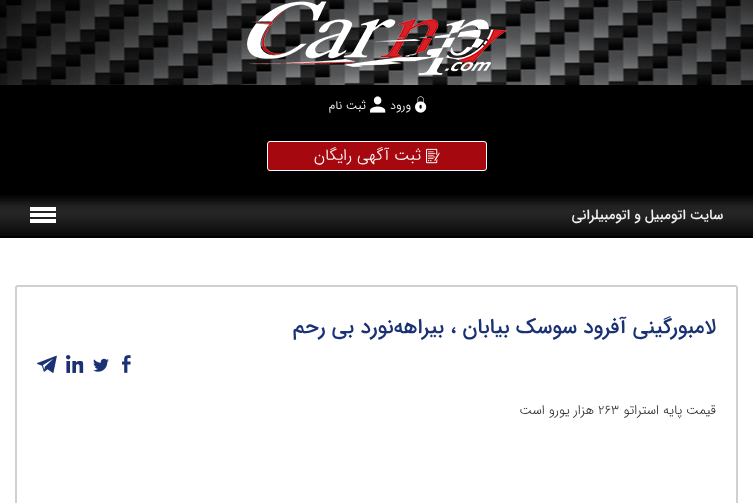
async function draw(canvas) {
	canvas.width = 753;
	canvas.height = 503;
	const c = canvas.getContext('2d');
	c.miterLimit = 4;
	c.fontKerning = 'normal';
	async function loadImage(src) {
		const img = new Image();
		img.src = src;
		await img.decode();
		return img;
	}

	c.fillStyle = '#fff';
	c.fillRect(0, 0, 753, 503);
	c.fillStyle = '#000';
	c.fillRect(0, 85, 753, 153);
	c.drawImage(await loadImage('img1.png'), 0, 0, 753, 85);
	c.drawImage(await loadImage('img2.png'), 247, 1, 260, 74);
	c.drawImage(await loadImage('img3.png'), 415, 96, 12, 17);
	c.direction = 'rtl';
	c.font = '300 12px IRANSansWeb';
	c.fillStyle = '#fff';
	c.fillText('ورود', 411, 109);
	c.drawImage(await loadImage('img4.png'), 370, 96, 16, 17);
	c.fillText('ثبت نام', 366, 109);
	c.fillStyle = '#a5080e';
	c.beginPath();
	c.roundRect(267.5, 141.5, 219, 29, 2.5);
	c.fill();
	c.strokeStyle = '#fff';
	c.stroke();
	c.drawImage(await loadImage('img5.png'), 426, 148, 14, 16);
	c.font = '300 16px IRANSansWeb';
	c.fillStyle = '#fff';
	c.fillText('ثبت آگهی رایگان', 421, 160);
	c.drawImage(await loadImage('img6.png'), 0, 195, 753, 41);
	c.font = '500 14px IRANSansWeb';
	c.fillStyle = '#f2f2f2';
	c.fillText('سایت اتومبیل و اتومبیلرانی', 723, 219);
	for (const [x, y, w, h, color] of [
		[30, 207, 26, 4, '#fff'],
		[30, 213, 26, 4, '#fff'],
		[30, 219, 26, 4, '#fff'],
	]) {
		c.fillStyle = color;
		c.fillRect(x, y, w, h);
	}
	c.beginPath();
	c.roundRect(16, 286, 721, 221, 2);
	c.strokeStyle = '#d0d0d0';
	c.lineWidth = 2;
	c.stroke();
	c.font = '500 21px IRANSansWeb';
	c.fillStyle = '#1a3173';
	c.fillText('لامبورگینی آفرود سوسک بیابان ، بیراهه‌نورد بی رحم', 716, 333);
	c.drawImage(await loadImage('img7.png'), 122, 355, 9, 18);
	c.drawImage(await loadImage('img8.png'), 93, 358, 16, 14);
	c.drawImage(await loadImage('img9.png'), 66, 355, 18, 18);
	c.drawImage(await loadImage('img10.png'), 37, 355, 20, 18);
	c.font = '300 13px IRANSansWeb';
	c.fillStyle = '#333';
	c.fillText('قیمت پایه استراتو', 716, 414);
	c.direction = 'ltr';
	c.fillText('۲۶۳', 598, 414);
	c.direction = 'rtl';
	c.fillText('هزار یورو است', 594, 414);
}

draw(document.querySelector('canvas'));
